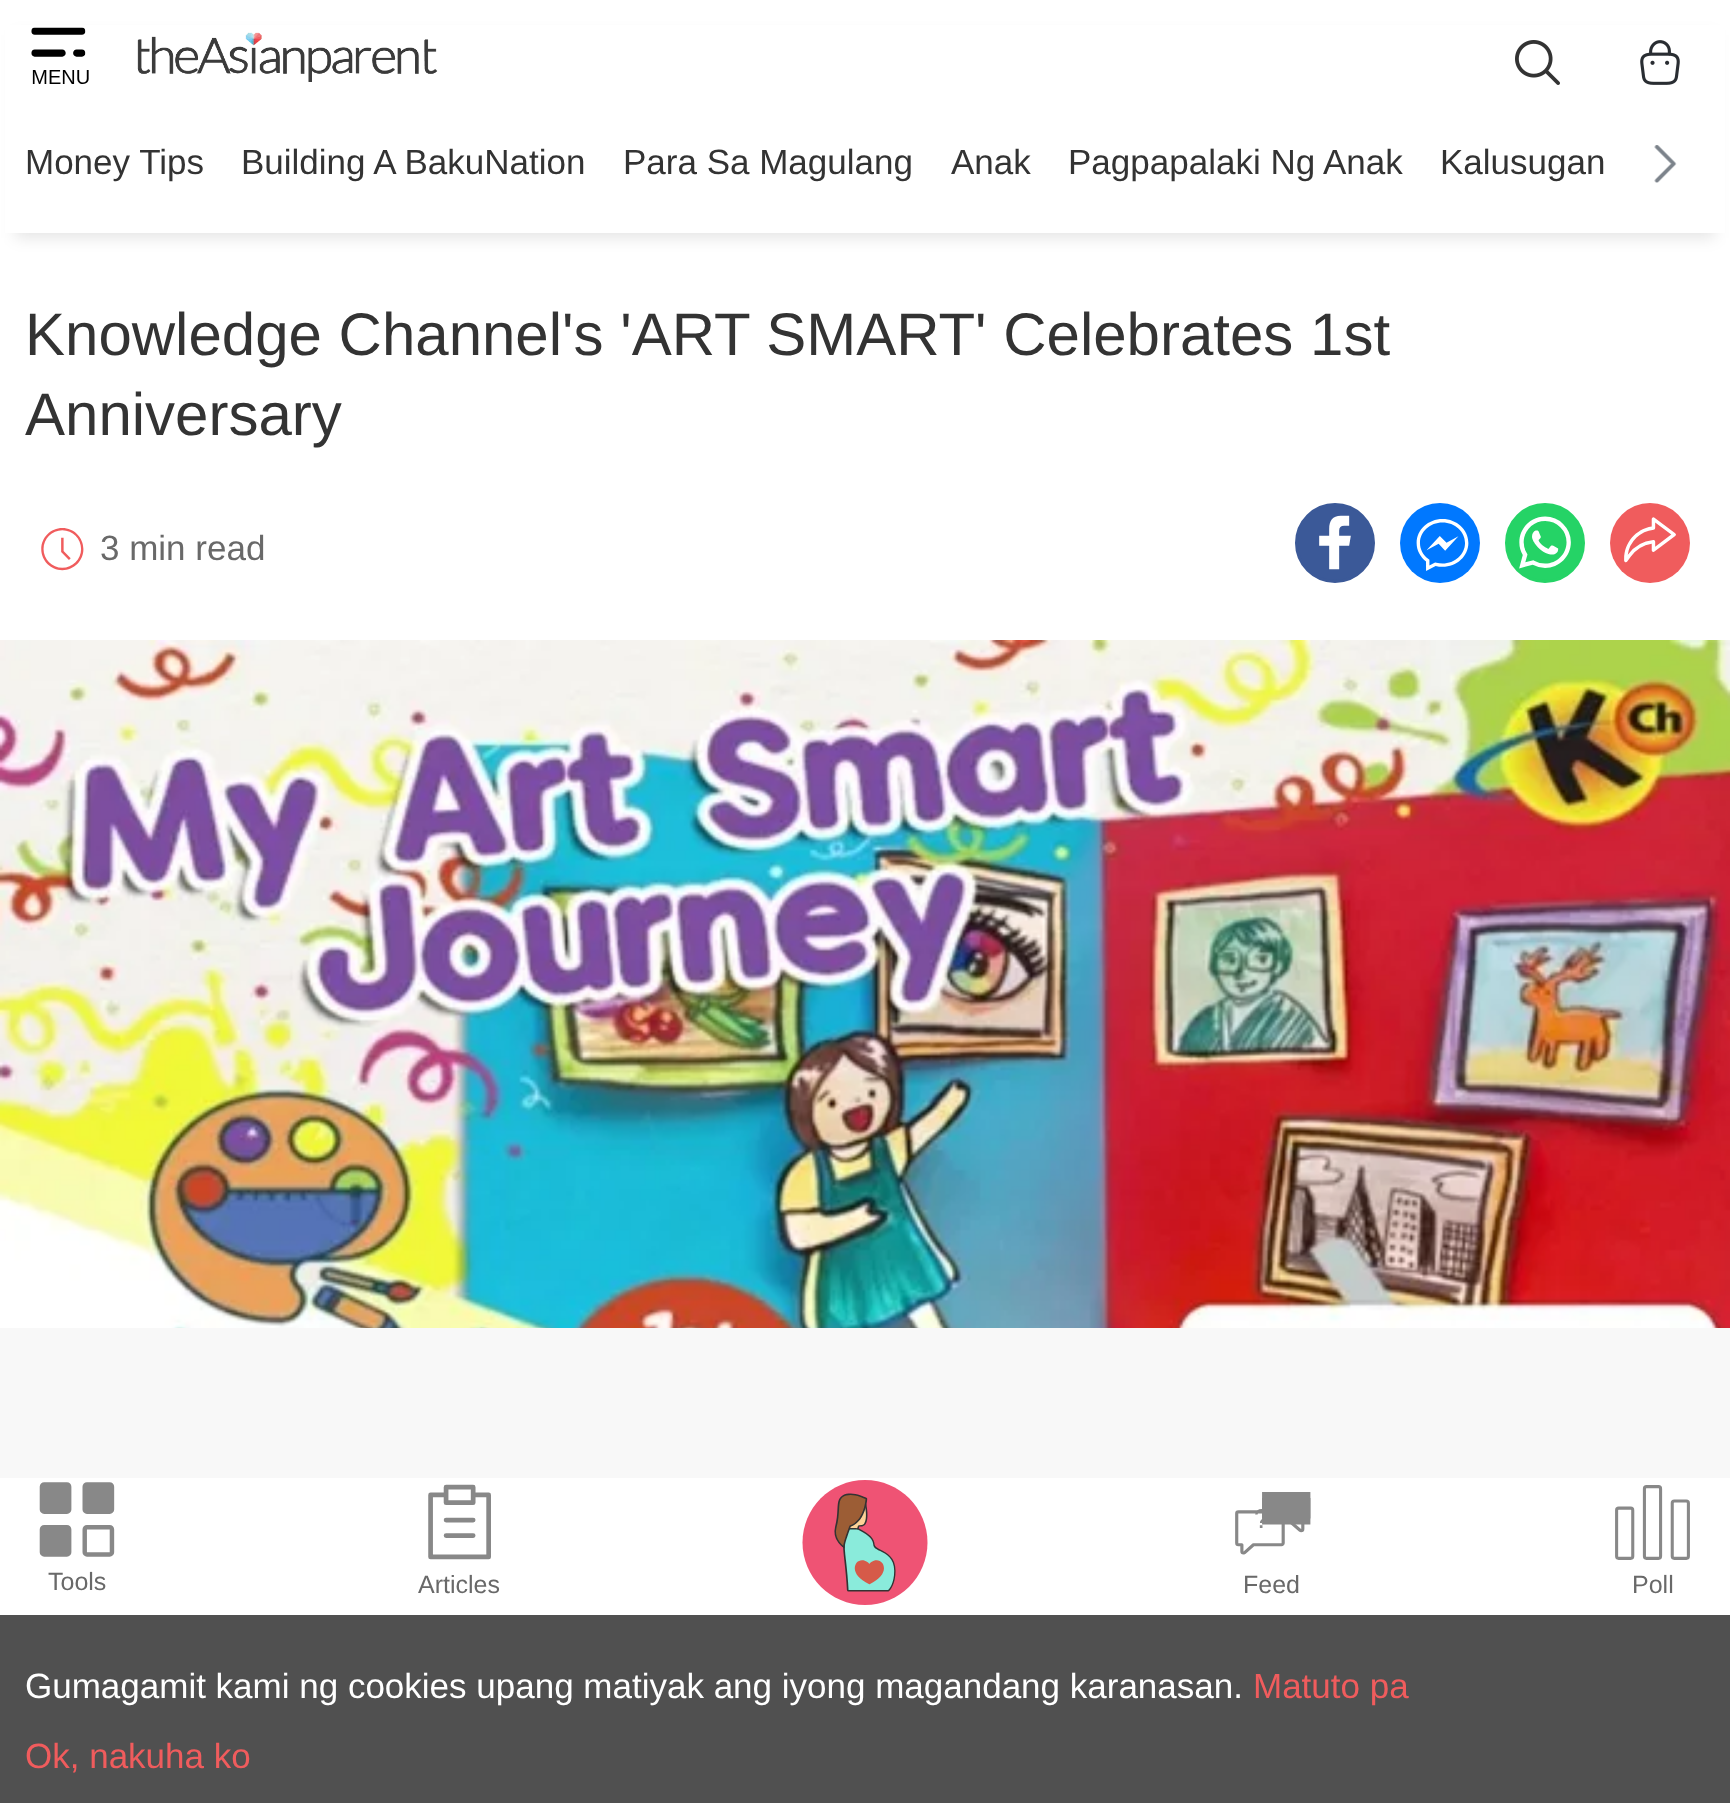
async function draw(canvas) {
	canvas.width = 1730;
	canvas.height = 1803;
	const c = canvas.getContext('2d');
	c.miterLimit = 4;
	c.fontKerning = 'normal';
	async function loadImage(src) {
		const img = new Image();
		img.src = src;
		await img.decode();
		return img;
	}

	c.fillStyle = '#fff';
	c.fillRect(0, 0, 1730, 1803);
	c.fillStyle = '#0000001a';
	c.filter = 'blur(7.5px)';
	c.beginPath();
	c.rect(15, 35, 1700, 203);
	c.fill();
	c.filter = 'none';
	c.fillStyle = '#fff';
	c.fillRect(5, 25, 1720, 208);
	c.drawImage(await loadImage('img1.png'), 31, 27, 58, 57);
	c.drawImage(await loadImage('img2.png'), 137, 32, 301, 50);
	c.drawImage(await loadImage('img3.png'), 1515, 40, 45, 45);
	c.drawImage(await loadImage('img4.png'), 1640, 40, 40, 45);
	c.font = '35px Liberation Sans';
	c.fillStyle = '#333';
	for (const [text, x, y] of [
		['Money Tips', 25, 174],
		['Building A BakuNation', 241, 174],
		['Para Sa Magulang', 623, 174],
		['Anak', 951, 174],
		['Pagpapalaki Ng Anak', 1068, 174],
		['Kalusugan', 1440, 174],
	]) {
		c.fillText(text, x, y);
	}
	c.drawImage(await loadImage('img5.png'), 1654, 145, 23, 38);
	c.font = '60px Liberation Sans';
	c.fillText('Knowledge Channel\'s \'ART SMART\' Celebrates 1st', 25, 355);
	c.fillText('Anniversary', 25, 435);
	c.drawImage(await loadImage('img6.png'), 41, 528, 43, 43);
	c.font = '35px Liberation Sans';
	c.fillStyle = '#696969';
	c.fillText('3 min read', 100, 560);
	c.fillStyle = '#3b5998';
	c.beginPath();
	c.arc(1335, 543, 38.5, 0, 2 * Math.PI);
	c.fill();
	c.strokeStyle = '#3b5998';
	c.lineWidth = 3;
	c.stroke();
	c.drawImage(await loadImage('img7.png'), 1319, 515, 32, 55);
	c.fillStyle = '#0078ff';
	c.beginPath();
	c.arc(1440, 543, 40, 0, 2 * Math.PI);
	c.fill();
	c.drawImage(await loadImage('img8.png'), 1416, 519, 53, 52);
	c.fillStyle = '#25d366';
	c.beginPath();
	c.arc(1545, 543, 38.5, 0, 2 * Math.PI);
	c.fill();
	c.strokeStyle = '#25d366';
	c.stroke();
	c.drawImage(await loadImage('img9.png'), 1519, 516, 52, 53);
	c.fillStyle = '#f05c5d';
	c.beginPath();
	c.arc(1650, 543, 40, 0, 2 * Math.PI);
	c.fill();
	c.drawImage(await loadImage('img10.png'), 1624, 517, 52, 46);
	c.drawImage(await loadImage('img11.png'), 0, 640, 1730, 688);
	c.fillStyle = '#f8f8f8';
	c.fillRect(0, 1328, 1730, 150);
	c.drawImage(await loadImage('img12.png'), 39, 1482, 76, 75);
	c.font = '25px Liberation Sans';
	c.fillStyle = '#696969';
	c.fillText('Tools', 48, 1590);
	c.drawImage(await loadImage('img13.png'), 428, 1484, 63, 76);
	c.fillText('Articles', 418, 1593);
	c.drawImage(await loadImage('img14.png'), 802, 1480, 126, 125);
	c.drawImage(await loadImage('img15.png'), 1235, 1492, 76, 63);
	c.fillText('Feed', 1243, 1593);
	c.drawImage(await loadImage('img16.png'), 1615, 1485, 75, 75);
	c.fillText('Poll', 1632, 1593);
	c.fillStyle = '#505050';
	c.fillRect(0, 1615, 1730, 188);
	c.font = '35px Liberation Sans';
	c.fillStyle = '#fff';
	c.fillText('Gumagamit kami ng cookies upang matiyak ang iyong magandang karanasan.', 25, 1698);
	c.fillStyle = '#f05c5d';
	c.fillText('Matuto pa', 1253, 1698);
	c.fillText('Ok, nakuha ko', 25, 1768);
}

draw(document.querySelector('canvas'));
